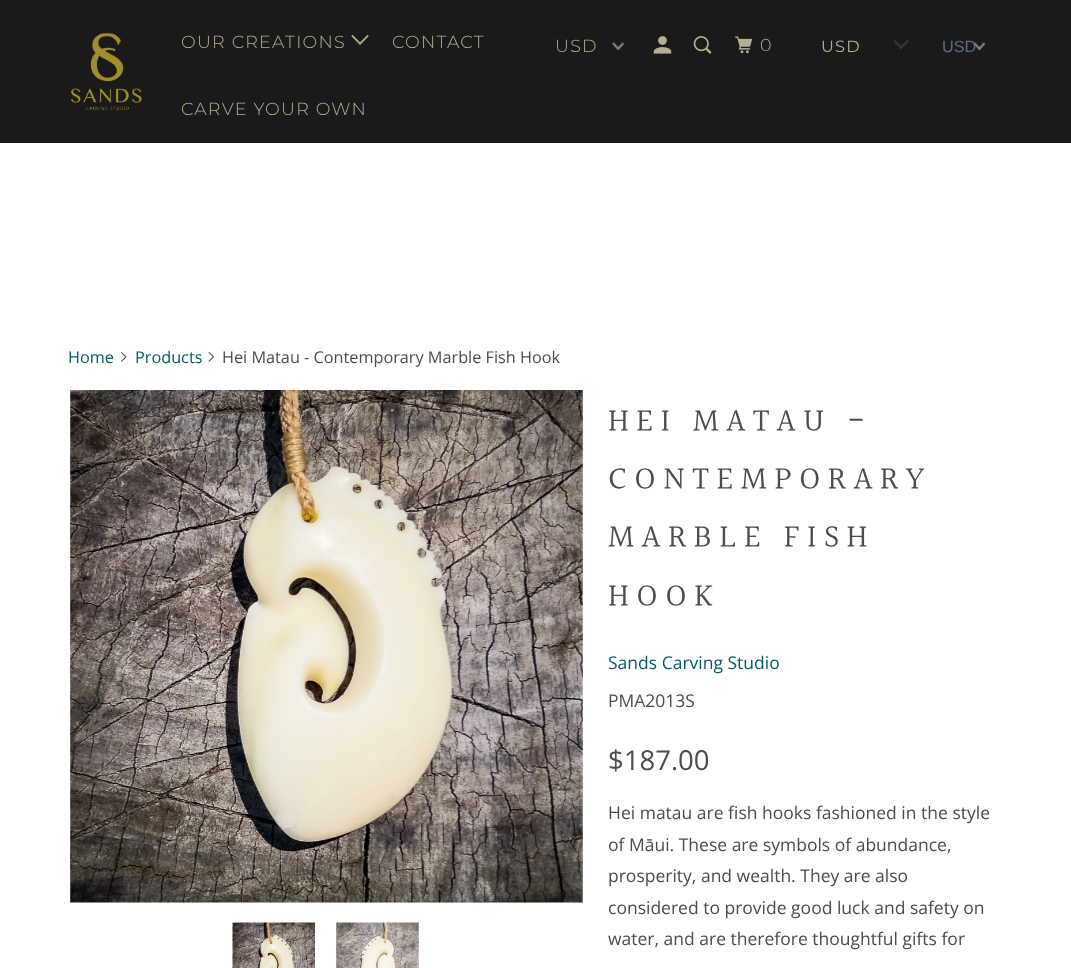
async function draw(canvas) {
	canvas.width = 1071;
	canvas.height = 968;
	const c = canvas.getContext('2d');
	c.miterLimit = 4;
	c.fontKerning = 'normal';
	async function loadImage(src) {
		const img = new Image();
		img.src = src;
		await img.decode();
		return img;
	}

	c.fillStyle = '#fff';
	c.fillRect(0, 0, 1071, 968);
	c.fillStyle = '#1a1a1a';
	c.fillRect(0, 0, 1071, 143);
	c.drawImage(await loadImage('img1.png'), 70, 32, 72, 79);
	c.letterSpacing = '1.25px';
	c.font = '300 17.5px Montserrat';
	c.fillStyle = '#b3af94';
	c.fillText('OUR CREATIONS', 181, 48);
	c.drawImage(await loadImage('img2.png'), 351, 34, 18, 11);
	c.fillText('CONTACT', 392, 48);
	c.fillText('CARVE YOUR OWN', 181, 115);
	c.drawImage(await loadImage('img3.png'), 612, 42, 12, 9);
	c.fillText('USD', 555, 52);
	c.drawImage(await loadImage('img4.png'), 653, 36, 19, 18);
	c.drawImage(await loadImage('img5.png'), 693, 36, 19, 18);
	c.drawImage(await loadImage('img6.png'), 735, 36, 18, 18);
	c.fillText('0', 760, 51);
	c.font = '16.25px Montserrat';
	c.fillText('USD', 821, 52);
	c.fillStyle = '#333';
	c.beginPath();
	c.moveTo(907.5, 39.5);
	c.lineTo(909, 41.5);
	c.lineTo(901, 49.5);
	c.lineTo(899.5, 47.5);
	c.closePath();
	c.fill();
	c.beginPath();
	c.moveTo(895, 39.5);
	c.lineTo(903, 47.5);
	c.lineTo(901, 49.5);
	c.lineTo(893.5, 41.5);
	c.closePath();
	c.fill();
	c.drawImage(await loadImage('img7.png'), 973, 42, 13, 9);
	c.letterSpacing = '0px';
	c.font = '16.25px Liberation Sans';
	c.fillStyle = '#5f6a7d';
	c.fillText('USD', 942, 52);
	c.font = '16.25px Open Sans';
	c.fillStyle = '#005e62';
	c.fillText('Home', 68, 363);
	c.drawImage(await loadImage('img8.png'), 121, 352, 6, 10);
	c.fillText('Products', 135, 363);
	c.drawImage(await loadImage('img9.png'), 208, 352, 7, 10);
	c.fillStyle = '#494c50';
	c.fillText('Hei Matau - Contemporary Marble Fish Hook', 222, 363);
	c.drawImage(await loadImage('img10.png'), 70, 390, 513, 513);
	c.drawImage(await loadImage('img11.png'), 232, 922, 83, 46);
	c.drawImage(await loadImage('img12.png'), 336, 922, 83, 46);
	c.letterSpacing = '7.5px';
	c.font = '32.5px Halant';
	for (const [text, x, y] of [
		['HEI MATAU -', 608, 432],
		['CONTEMPORARY', 608, 490],
		['MARBLE FISH', 608, 548],
		['HOOK', 608, 607],
	]) {
		c.fillText(text, x, y);
	}
	c.letterSpacing = '0px';
	c.font = '17.5px Open Sans';
	c.fillStyle = '#005e62';
	c.fillText('Sands Carving Studio', 608, 669);
	c.fillStyle = '#494c50';
	c.fillText('PMA2013S', 608, 707);
	c.font = '27.5px Open Sans';
	c.fillText('$187.00', 608, 770);
	c.font = '17.5px Open Sans';
	for (const [text, x, y] of [
		['Hei matau are fish hooks fashioned in the style', 608, 819],
		['of Māui. These are symbols of abundance,', 608, 851],
		['prosperity, and wealth. They are also', 608, 882],
		['considered to provide good luck and safety on', 608, 914],
		['water, and are therefore thoughtful gifts for', 608, 945],
	]) {
		c.fillText(text, x, y);
	}
}

draw(document.querySelector('canvas'));
